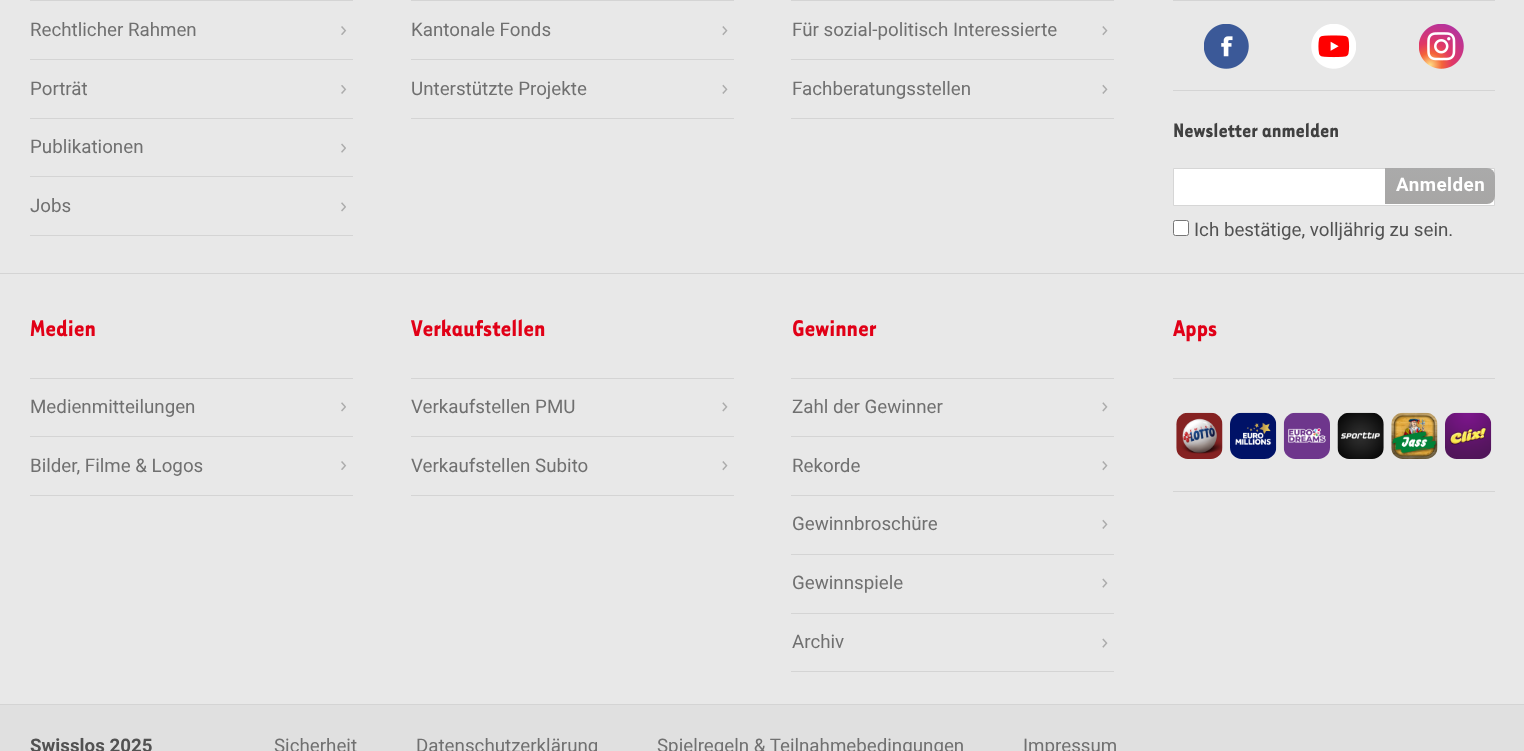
async function draw(canvas) {
	canvas.width = 1524;
	canvas.height = 751;
	const c = canvas.getContext('2d');
	c.miterLimit = 4;
	c.fontKerning = 'normal';
	async function loadImage(src) {
		const img = new Image();
		img.src = src;
		await img.decode();
		return img;
	}
	let gradient;

	c.fillStyle = '#e8e8e8';
	c.fillRect(0, 0, 1524, 751);
	for (const [x, y, w, h, color] of [
		[0, 273, 1524, 1, '#d4d4d4'],
		[30, 0, 323, 1, '#d4d4d4'],
		[30, 59, 323, 1, '#d4d4d4'],
	]) {
		c.fillStyle = color;
		c.fillRect(x, y, w, h);
	}
	c.drawImage(await loadImage('img1.png'), 341, 26, 6, 9);
	c.font = '18.75px Roboto';
	c.fillStyle = '#707070';
	c.fillText('Rechtlicher Rahmen', 30, 36);
	c.fillStyle = '#d4d4d4';
	c.fillRect(30, 118, 323, 1);
	c.drawImage(await loadImage('img2.png'), 341, 85, 6, 9);
	c.fillStyle = '#707070';
	c.fillText('Porträt', 30, 95);
	c.fillStyle = '#d4d4d4';
	c.fillRect(30, 176, 323, 1);
	c.drawImage(await loadImage('img3.png'), 341, 143, 5, 10);
	c.fillStyle = '#707070';
	c.fillText('Publikationen', 30, 153);
	c.fillStyle = '#d4d4d4';
	c.fillRect(30, 235, 323, 1);
	c.drawImage(await loadImage('img4.png'), 341, 202, 5, 10);
	c.fillStyle = '#707070';
	c.fillText('Jobs', 30, 212);
	c.fillStyle = '#d4d4d4';
	c.fillRect(411, 0, 323, 1);
	c.fillRect(411, 59, 323, 1);
	c.drawImage(await loadImage('img5.png'), 722, 26, 6, 10);
	c.fillStyle = '#707070';
	c.fillText('Kantonale Fonds', 411, 36);
	c.fillStyle = '#d4d4d4';
	c.fillRect(411, 118, 323, 1);
	c.drawImage(await loadImage('img6.png'), 722, 84, 6, 10);
	c.fillStyle = '#707070';
	c.fillText('Unterstützte Projekte', 411, 95);
	c.fillStyle = '#d4d4d4';
	c.fillRect(791, 0, 323, 1);
	c.fillRect(791, 59, 323, 1);
	c.drawImage(await loadImage('img5.png'), 1102, 26, 6, 10);
	c.fillStyle = '#707070';
	c.fillText('Für sozial-politisch Interessierte', 792, 36);
	c.fillStyle = '#d4d4d4';
	c.fillRect(791, 118, 323, 1);
	c.drawImage(await loadImage('img6.png'), 1102, 84, 6, 10);
	c.fillStyle = '#707070';
	c.fillText('Fachberatungsstellen', 792, 95);
	c.fillStyle = '#d4d4d4';
	c.fillRect(1173, 0, 322, 1);
	c.fillRect(1173, 90, 322, 1);
	c.drawImage(await loadImage('img7.png'), 1204, 24, 45, 45);
	c.drawImage(await loadImage('img8.png'), 1311, 24, 45, 45);
	c.drawImage(await loadImage('img9.png'), 1419, 24, 45, 45);
	c.font = 'bold 22.5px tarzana';
	c.fillStyle = '#404040';
	c.fillText('Newsletter anmelden', 1173, 137);
	c.fillStyle = '#fff';
	c.beginPath();
	c.rect(1173.5, 168.5, 321, 37);
	c.fill();
	c.strokeStyle = '#d6d6d6';
	c.stroke();
	gradient = c.createLinearGradient(1440, 168, 1440, 204);
	gradient.addColorStop(0, '#aaa');
	gradient.addColorStop(1, '#a7a6a5');
	c.fillStyle = gradient;
	c.beginPath();
	c.roundRect(1385, 168, 110, 36, [0, 8, 8, 0]);
	c.fill();
	c.letterSpacing = '0.5px';
	c.font = 'bold 18.75px Roboto';
	c.fillStyle = '#fff';
	c.fillText('Anmelden', 1396, 191);
	c.beginPath();
	c.roundRect(1173.5, 220.5, 15, 15, 2);
	c.fill();
	c.strokeStyle = '#767676';
	c.stroke();
	c.letterSpacing = '0px';
	c.font = '18.75px Roboto';
	c.fillStyle = '#525252';
	c.fillText('Ich bestätige, volljährig zu sein.', 1194, 236);
	c.fillStyle = '#d4d4d4';
	c.fillRect(0, 704, 1524, 1);
	c.fillRect(30, 378, 323, 1);
	c.font = 'bold 26.25px tarzana';
	c.fillStyle = '#e10017';
	c.fillText('Medien', 30, 336);
	c.fillStyle = '#d4d4d4';
	c.fillRect(30, 436, 323, 1);
	c.drawImage(await loadImage('img10.png'), 341, 402, 5, 10);
	c.font = '18.75px Roboto';
	c.fillStyle = '#707070';
	c.fillText('Medienmitteilungen', 30, 413);
	c.fillStyle = '#d4d4d4';
	c.fillRect(30, 495, 323, 1);
	c.drawImage(await loadImage('img11.png'), 341, 461, 6, 9);
	c.fillStyle = '#707070';
	c.fillText('Bilder, Filme & Logos', 30, 472);
	c.fillStyle = '#d4d4d4';
	c.fillRect(411, 378, 323, 1);
	c.font = 'bold 26.25px tarzana';
	c.fillStyle = '#e10017';
	c.fillText('Verkaufstellen', 411, 336);
	c.fillStyle = '#d4d4d4';
	c.fillRect(411, 436, 323, 1);
	c.drawImage(await loadImage('img12.png'), 722, 402, 6, 10);
	c.font = '18.75px Roboto';
	c.fillStyle = '#707070';
	c.fillText('Verkaufstellen PMU', 411, 413);
	c.fillStyle = '#d4d4d4';
	c.fillRect(411, 495, 323, 1);
	c.drawImage(await loadImage('img13.png'), 722, 461, 6, 10);
	c.fillStyle = '#707070';
	c.fillText('Verkaufstellen Subito', 411, 472);
	c.fillStyle = '#d4d4d4';
	c.fillRect(791, 378, 323, 1);
	c.font = 'bold 26.25px tarzana';
	c.fillStyle = '#e10017';
	c.fillText('Gewinner', 792, 336);
	c.fillStyle = '#d4d4d4';
	c.fillRect(791, 436, 323, 1);
	c.drawImage(await loadImage('img12.png'), 1102, 402, 6, 10);
	c.font = '18.75px Roboto';
	c.fillStyle = '#707070';
	c.fillText('Zahl der Gewinner', 792, 413);
	c.fillStyle = '#d4d4d4';
	c.fillRect(791, 495, 323, 1);
	c.drawImage(await loadImage('img13.png'), 1102, 461, 6, 10);
	c.fillStyle = '#707070';
	c.fillText('Rekorde', 792, 472);
	c.fillStyle = '#d4d4d4';
	c.fillRect(791, 554, 323, 1);
	c.drawImage(await loadImage('img14.png'), 1102, 519, 6, 10);
	c.fillStyle = '#707070';
	c.fillText('Gewinnbroschüre', 792, 530);
	c.fillStyle = '#d4d4d4';
	c.fillRect(791, 613, 323, 1);
	c.drawImage(await loadImage('img15.png'), 1102, 578, 6, 10);
	c.fillStyle = '#707070';
	c.fillText('Gewinnspiele', 792, 589);
	c.fillStyle = '#d4d4d4';
	c.fillRect(791, 671, 323, 1);
	c.drawImage(await loadImage('img15.png'), 1102, 638, 6, 10);
	c.fillStyle = '#707070';
	c.fillText('Archiv', 792, 648);
	c.fillStyle = '#d4d4d4';
	c.fillRect(1173, 378, 322, 1);
	c.font = 'bold 26.25px tarzana';
	c.fillStyle = '#e10017';
	c.fillText('Apps', 1173, 336);
	c.fillStyle = '#d4d4d4';
	c.fillRect(1173, 491, 322, 1);
	c.drawImage(await loadImage('img16.png'), 1176, 412, 47, 47);
	c.drawImage(await loadImage('img17.png'), 1230, 412, 47, 47);
	c.drawImage(await loadImage('img18.png'), 1283, 412, 47, 47);
	c.drawImage(await loadImage('img19.png'), 1337, 412, 47, 47);
	c.drawImage(await loadImage('img20.png'), 1391, 412, 47, 47);
	c.drawImage(await loadImage('img21.png'), 1445, 412, 47, 47);
	c.fillStyle = '#e0e0e0';
	c.fillRect(0, 705, 1524, 46);
	c.font = 'bold 18.75px Roboto';
	c.fillStyle = '#525252';
	c.fillText('Swisslos 2025', 30, 752);
	c.font = '18.75px Roboto';
	c.fillStyle = '#707070';
	for (const [text, x, y] of [
		['Sicherheit', 274, 752],
		['Datenschutzerklärung', 416, 752],
		['Spielregeln & Teilnahmebedingungen', 657, 752],
		['Impressum', 1023, 752],
	]) {
		c.fillText(text, x, y);
	}
}

draw(document.querySelector('canvas'));
